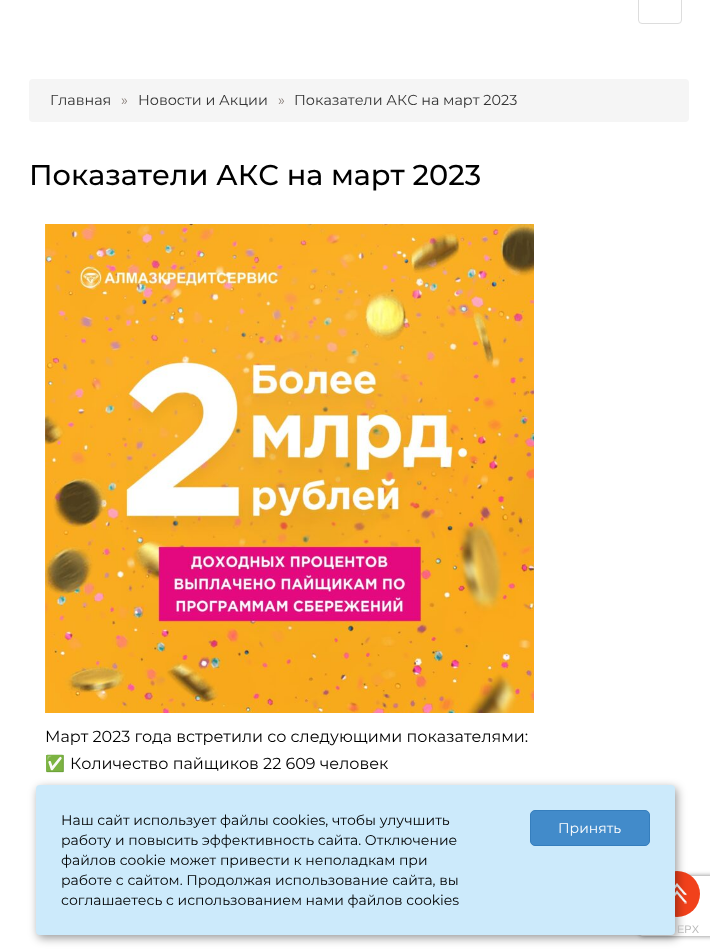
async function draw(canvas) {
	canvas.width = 710;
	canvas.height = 950;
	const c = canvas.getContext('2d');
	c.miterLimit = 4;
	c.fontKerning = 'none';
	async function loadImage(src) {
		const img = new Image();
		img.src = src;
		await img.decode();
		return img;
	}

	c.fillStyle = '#fff';
	c.fillRect(0, 0, 710, 950);
	c.beginPath();
	c.roundRect(638.5, -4.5, 43, 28, 3.5);
	c.strokeStyle = '#ddd';
	c.stroke();
	c.fillStyle = '#f5f5f5';
	c.beginPath();
	c.roundRect(29, 79, 660, 43, 4);
	c.fill();
	c.font = '14.4px Montserrat';
	c.fillStyle = '#333';
	c.fillText('Главная', 50, 105);
	c.fillStyle = '#887e79';
	c.fillText('»', 121, 105);
	c.fillStyle = '#333';
	c.fillText('Новости и Акции', 138, 105);
	c.fillStyle = '#887e79';
	c.fillText('»', 278, 105);
	c.fillStyle = '#333';
	c.fillText('Показатели АКС на март 2023', 294, 105);
	c.font = '500 28.75px Montserrat';
	c.fillStyle = '#000';
	c.fillText('Показатели АКС на март 2023', 29, 185);
	c.drawImage(await loadImage('img1.png'), 45, 224, 489, 489);
	c.font = '16px Montserrat';
	c.fillText('Март 2023 года встретили со следующими показателями:', 45, 742);
	c.font = '16px Noto Color Emoji';
	c.fillText('✅', 45, 769);
	c.font = '16px Montserrat';
	c.fillText('Количество пайщиков 22 609 человек', 70, 769);
	c.save();
	c.beginPath();
	c.moveTo(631, 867);
	c.lineTo(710, 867);
	c.lineTo(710, 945);
	c.lineTo(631, 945);
	c.closePath();
	c.moveTo(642, 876);
	c.lineTo(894, 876);
	c.bezierCurveTo(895, 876, 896, 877, 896, 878);
	c.lineTo(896, 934);
	c.bezierCurveTo(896, 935, 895, 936, 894, 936);
	c.lineTo(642, 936);
	c.bezierCurveTo(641, 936, 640, 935, 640, 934);
	c.lineTo(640, 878);
	c.bezierCurveTo(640, 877, 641, 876, 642, 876);
	c.closePath();
	c.clip('evenodd');
	c.fillStyle = '#808080';
	c.filter = 'blur(2.5px)';
	c.beginPath();
	c.roundRect(640, 876, 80, 60, 2);
	c.fill();
	c.filter = 'none';
	c.restore();
	c.fillStyle = '#f1411b';
	c.beginPath();
	c.arc(677, 894, 23, 0, 2 * Math.PI);
	c.fill();
	c.drawImage(await loadImage('img2.png'), 675, 883, 12, 21);
	c.fillStyle = '#00000066';
	c.filter = 'blur(5px)';
	c.beginPath();
	c.roundRect(38, 788, 639, 150, 4);
	c.fill();
	c.filter = 'none';
	c.fillStyle = '#cceafb';
	c.beginPath();
	c.roundRect(36, 785, 639, 150, 4);
	c.fill();
	c.font = '14px Montserrat';
	c.fillStyle = '#000';
	for (const [text, x, y] of [
		['Наш сайт использует файлы cookies, чтобы улучшить', 61, 825],
		['работу и повысить эффективность сайта. Отключение', 61, 845],
		['файлов cookie может привести к неполадкам при', 61, 865],
		['работе с сайтом. Продолжая использование сайта, вы', 61, 885],
		['соглашаетесь c использованием нами файлов cookies', 61, 905],
	]) {
		c.fillText(text, x, y);
	}
	c.fillStyle = '#428bca';
	c.beginPath();
	c.roundRect(530.5, 810.5, 119, 35, 4.5);
	c.fill();
	c.strokeStyle = '#357ebd';
	c.stroke();
	c.fillStyle = '#fff';
	c.fillText('Принять', 558, 833);
	c.font = '11px Liberation Sans';
	c.fillStyle = '#bbb';
	c.fillText('ЕРХ', 677, 933);
}

draw(document.querySelector('canvas'));
